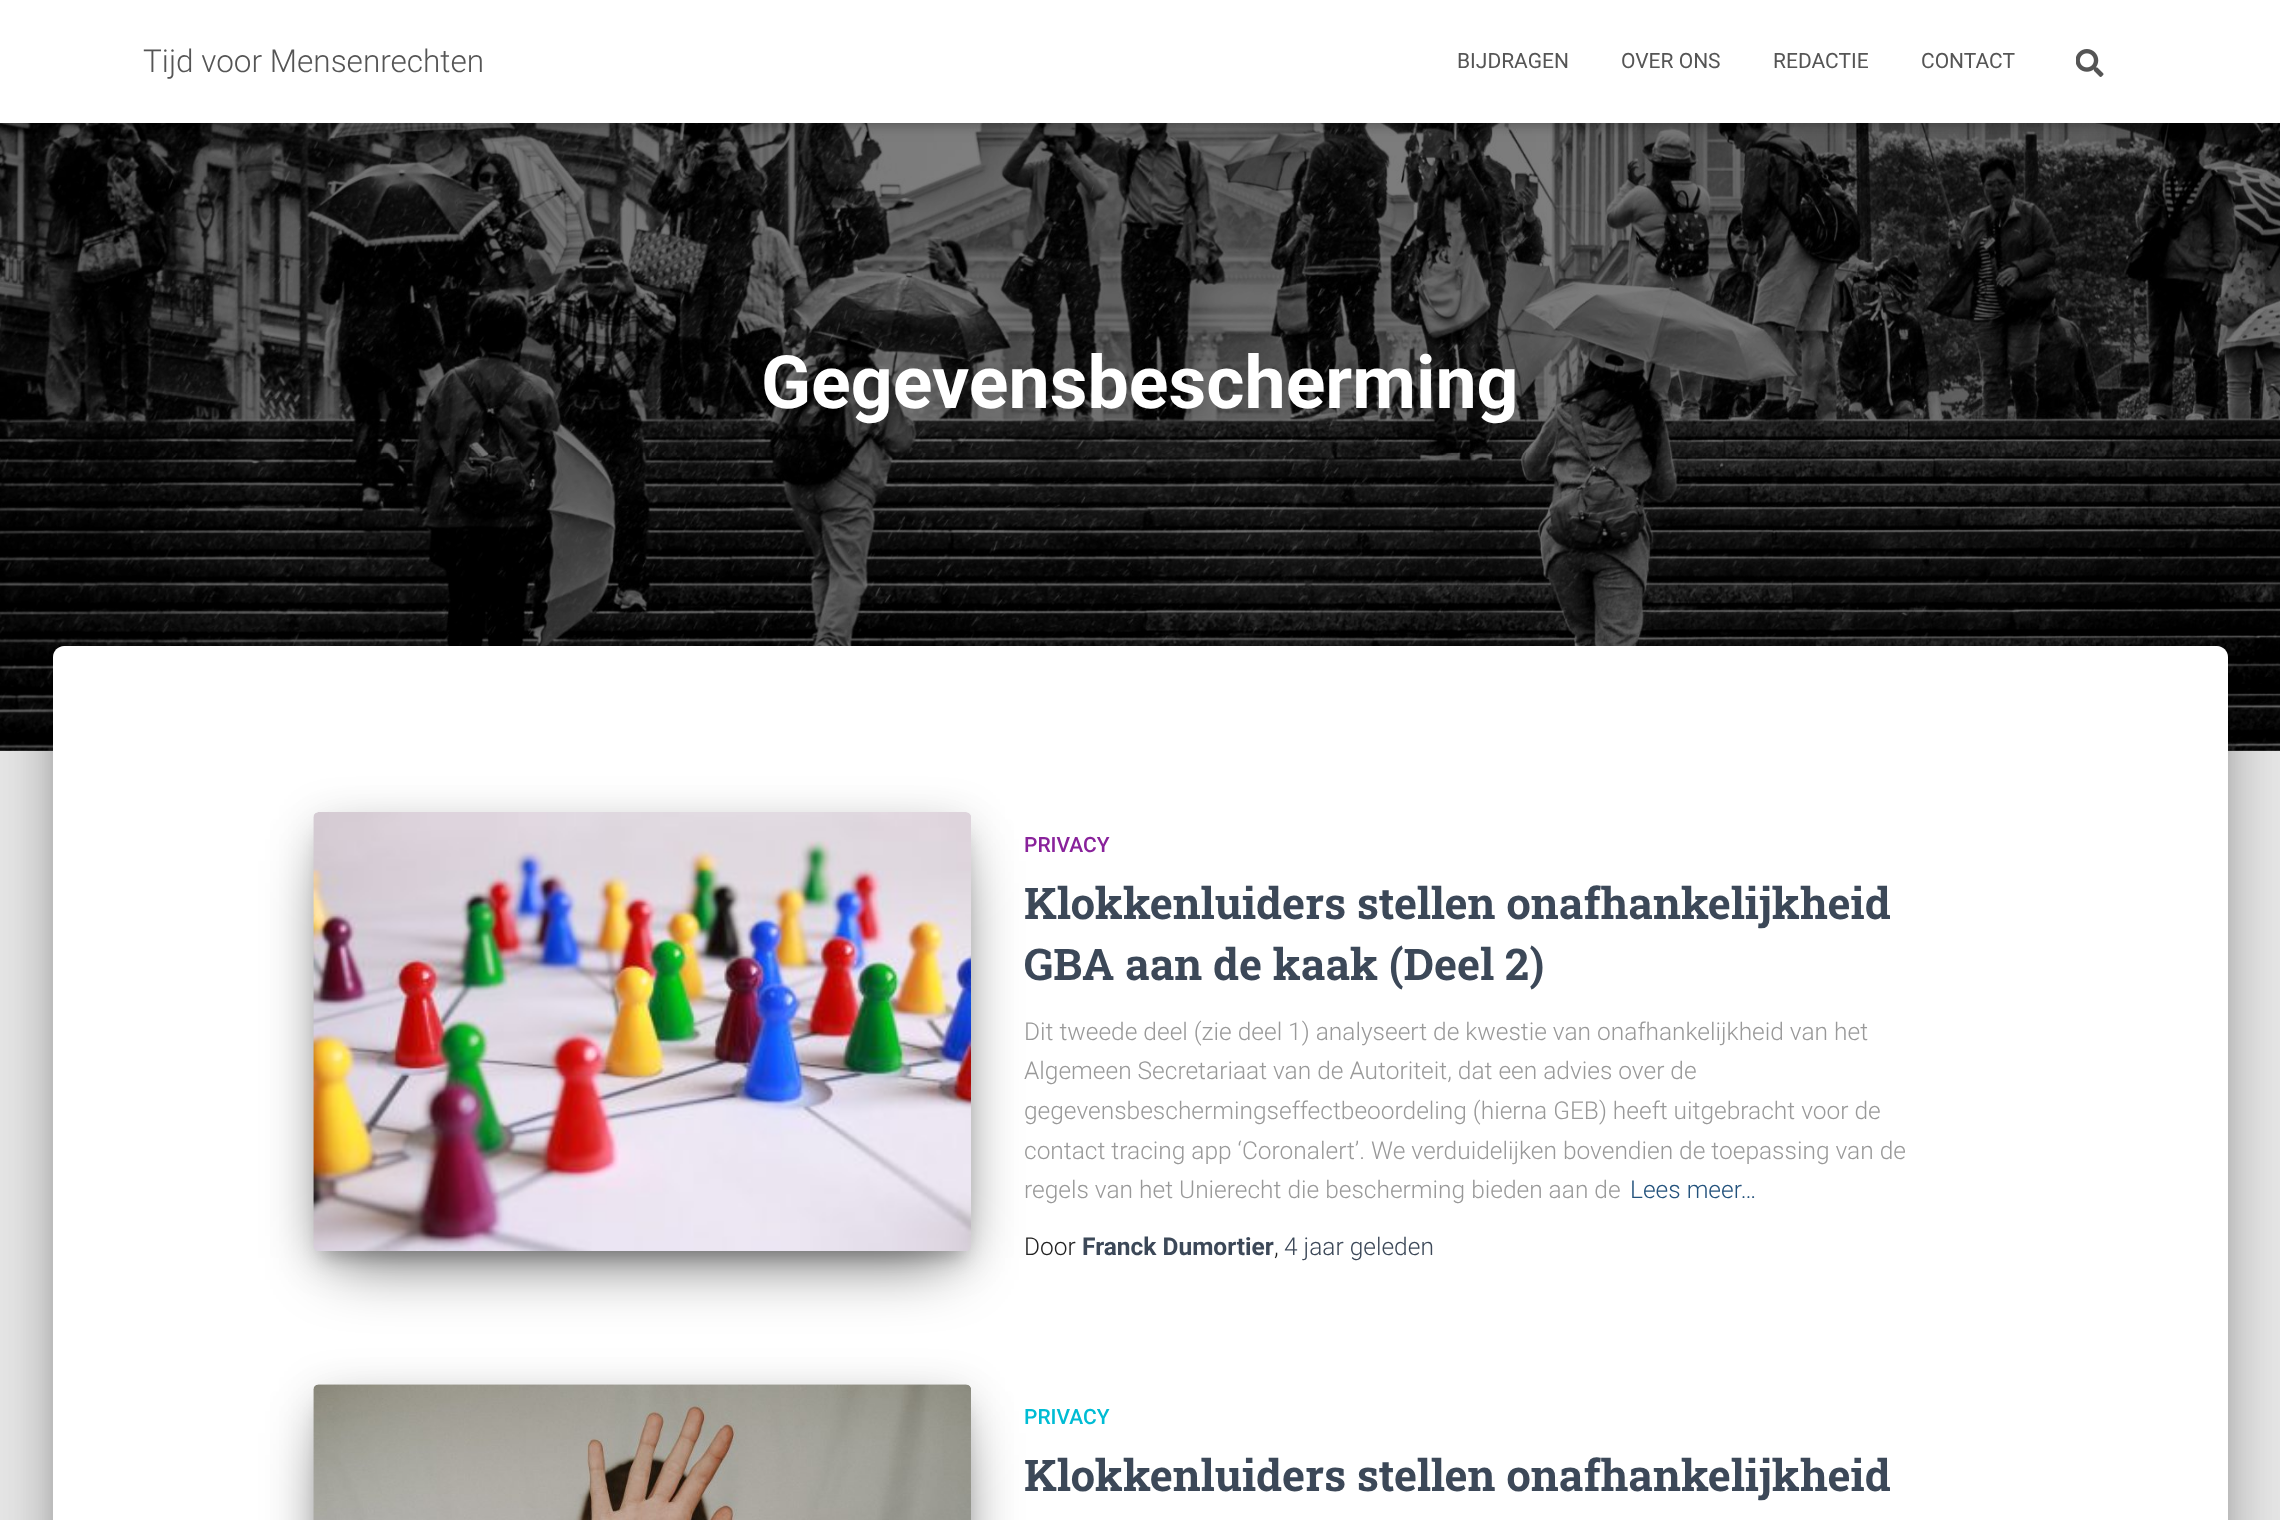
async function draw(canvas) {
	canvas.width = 2280;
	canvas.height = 1520;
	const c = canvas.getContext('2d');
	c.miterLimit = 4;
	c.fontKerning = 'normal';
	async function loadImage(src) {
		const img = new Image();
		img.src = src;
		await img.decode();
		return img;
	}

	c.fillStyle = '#e5e5e5';
	c.fillRect(0, 0, 2280, 1520);
	c.drawImage(await loadImage('img2.png'), 0, 123, 2280, 628);
	c.fillStyle = '#0000001a';
	c.filter = 'blur(4.5px)';
	c.beginPath();
	c.rect(4, 11, 2273, 115);
	c.fill();
	c.filter = 'none';
	c.fillStyle = '#0000001f';
	c.filter = 'blur(9px)';
	c.beginPath();
	c.rect(0, 2, 2280, 122);
	c.fill();
	c.filter = 'none';
	c.fillStyle = '#0000006b';
	c.filter = 'blur(9px)';
	c.beginPath();
	c.rect(11, 12, 2259, 102);
	c.fill();
	c.filter = 'none';
	c.fillStyle = '#fff';
	c.fillRect(0, 0, 2280, 123);
	c.font = '300 31.5px Roboto';
	c.fillStyle = '#555';
	c.fillText('Tijd voor Mensenrechten', 143, 72);
	c.font = '21px Roboto';
	for (const [text, x, y] of [
		['BIJDRAGEN', 1457, 68],
		['OVER ONS', 1621, 68],
		['REDACTIE', 1773, 68],
		['CONTACT', 1921, 68],
	]) {
		c.fillText(text, x, y);
	}
	c.drawImage(await loadImage('img1.png'), 2076, 49, 28, 28);
	c.font = 'bold 73.5px Roboto';
	c.fillStyle = '#fff';
	c.fillText('Gegevensbescherming', 761, 408);
	c.fillStyle = '#00000033';
	c.filter = 'blur(9px)';
	c.beginPath();
	c.roundRect(61, 669, 2158, 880, 2);
	c.fill();
	c.filter = 'none';
	c.fillStyle = '#0000001f';
	c.filter = 'blur(26px)';
	c.beginPath();
	c.roundRect(44, 648, 2193, 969, 19);
	c.fill();
	c.filter = 'none';
	c.fillStyle = '#00000024';
	c.filter = 'blur(21px)';
	c.beginPath();
	c.roundRect(49, 670, 2182, 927, 14);
	c.fill();
	c.filter = 'none';
	c.fillStyle = '#fff';
	c.beginPath();
	c.moveTo(64, 646);
	c.lineTo(2217, 646);
	c.bezierCurveTo(2223, 646, 2228, 651, 2228, 657);
	c.lineTo(2228, 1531);
	c.lineTo(53, 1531);
	c.lineTo(53, 657);
	c.bezierCurveTo(53, 651, 58, 646, 64, 646);
	c.closePath();
	c.fill();
	c.fillStyle = '#00000033';
	c.filter = 'blur(9px)';
	c.beginPath();
	c.rect(322, 835, 641, 422);
	c.fill();
	c.filter = 'none';
	c.fillStyle = '#0000001f';
	c.filter = 'blur(22px)';
	c.beginPath();
	c.roundRect(313, 819, 658, 439, 5);
	c.fill();
	c.filter = 'none';
	c.fillStyle = '#0000008f';
	c.filter = 'blur(33px)';
	c.beginPath();
	c.rect(334, 861, 616, 397);
	c.fill();
	c.filter = 'none';
	c.drawImage(await loadImage('img3.png'), 313, 812, 658, 439);
	c.font = '500 21px Roboto';
	c.fillStyle = '#89229b';
	c.fillText('PRIVACY', 1024, 852);
	c.font = 'bold 43.75px Roboto Slab';
	c.fillStyle = '#3c4858';
	c.fillText('Klokkenluiders stellen onafhankelijkheid', 1024, 919);
	c.fillText('GBA aan de kaak (Deel 2)', 1024, 980);
	c.font = '300 24.5px Roboto';
	c.fillStyle = '#999';
	for (const [text, x, y] of [
		['Dit tweede deel (zie deel 1) analyseert de kwestie van onafhankelijkheid van het', 1024, 1040],
		['Algemeen Secretariaat van de Autoriteit, dat een advies over de', 1024, 1079],
		['gegevensbeschermingseffectbeoordeling (hierna GEB) heeft uitgebracht voor de', 1024, 1119],
		['contact tracing app ‘Coronalert’. We verduidelijken bovendien de toepassing van de', 1024, 1159],
		['regels van het Unierecht die bescherming bieden aan de', 1024, 1198],
	]) {
		c.fillText(text, x, y);
	}
	c.fillStyle = '#23527c';
	c.fillText('Lees meer…', 1630, 1198);
	c.fillStyle = '#212121';
	c.fillText('Door', 1024, 1255);
	c.font = 'bold 24.5px Roboto';
	c.fillStyle = '#3c4858';
	c.fillText('Franck Dumortier', 1082, 1255);
	c.font = '300 24.5px Roboto';
	c.fillStyle = '#212121';
	c.fillText(',', 1274, 1255);
	c.fillStyle = '#3c4858';
	c.fillText('4 jaar geleden', 1284, 1255);
	c.fillStyle = '#00000033';
	c.filter = 'blur(9px)';
	c.beginPath();
	c.rect(322, 1407, 641, 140);
	c.fill();
	c.filter = 'none';
	c.fillStyle = '#0000001f';
	c.filter = 'blur(22px)';
	c.beginPath();
	c.roundRect(313, 1391, 658, 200, 5);
	c.fill();
	c.filter = 'none';
	c.fillStyle = '#0000008f';
	c.filter = 'blur(33px)';
	c.beginPath();
	c.rect(334, 1433, 616, 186);
	c.fill();
	c.filter = 'none';
	c.drawImage(await loadImage('img4.png'), 313, 1384, 658, 136);
	c.font = '500 21px Roboto';
	c.fillStyle = '#00bcd4';
	c.fillText('PRIVACY', 1024, 1424);
	c.font = 'bold 43.75px Roboto Slab';
	c.fillStyle = '#3c4858';
	c.fillText('Klokkenluiders stellen onafhankelijkheid', 1024, 1491);
}

draw(document.querySelector('canvas'));
